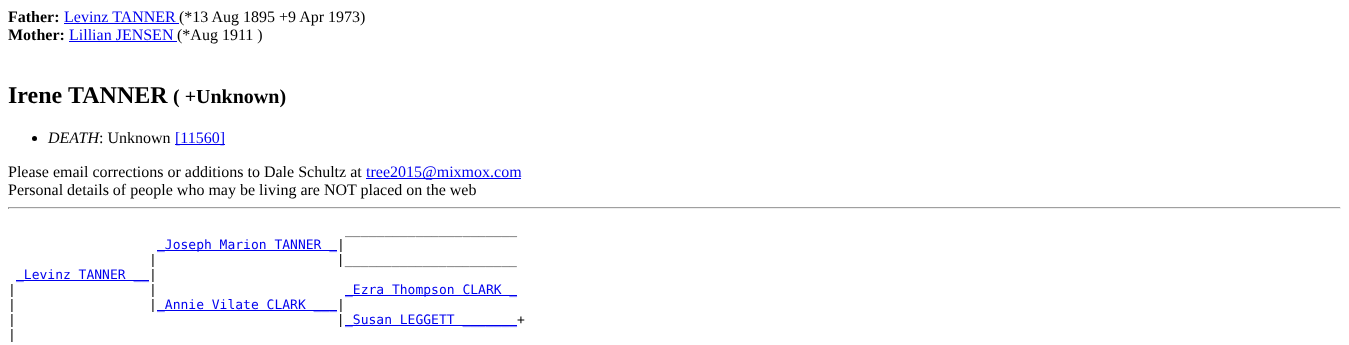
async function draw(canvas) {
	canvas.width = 1349;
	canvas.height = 345;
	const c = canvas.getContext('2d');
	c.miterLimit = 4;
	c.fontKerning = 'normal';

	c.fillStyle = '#fff';
	c.fillRect(0, 0, 1349, 345);
	c.font = 'bold 16px Liberation Serif';
	c.fillStyle = '#000';
	c.fillText('Father:', 8, 22);
	c.font = '16px Liberation Serif';
	c.fillStyle = '#00e';
	c.fillText('Levinz TANNER', 64, 22);
	c.fillStyle = '#000';
	c.fillText('(*13 Aug 1895 +9 Apr 1973)', 179, 22);
	c.fillStyle = '#00e';
	c.fillRect(64, 23, 115, 1);
	c.font = 'bold 16px Liberation Serif';
	c.fillStyle = '#000';
	c.fillText('Mother:', 8, 40);
	c.font = '16px Liberation Serif';
	c.fillStyle = '#00e';
	c.fillText('Lillian JENSEN', 69, 40);
	c.fillStyle = '#000';
	c.fillText('(*Aug 1911 )', 177, 40);
	c.fillStyle = '#00e';
	c.fillRect(69, 41, 108, 1);
	c.font = 'bold 24px Liberation Serif';
	c.fillStyle = '#000';
	c.fillText('Irene', 8, 103);
	c.fillText('TANNER', 68, 103);
	c.font = 'bold 20px Liberation Serif';
	c.fillText('( +Unknown)', 173, 103);
	c.beginPath();
	c.arc(34.5, 138.5, 2.5, 0, 2 * Math.PI);
	c.fill();
	c.font = 'italic 16px Liberation Serif';
	c.fillText('DEATH', 48, 143);
	c.font = '16px Liberation Serif';
	c.fillText(': Unknown', 99, 143);
	c.fillStyle = '#00e';
	c.fillRect(175, 144, 50, 1);
	c.fillText('[11560]', 175, 143);
	c.fillStyle = '#000';
	c.fillText('Please email corrections or additions to Dale Schultz at', 8, 177);
	c.fillStyle = '#00e';
	c.fillRect(366, 178, 155, 1);
	c.fillText('tree2015@mixmox.com', 366, 177);
	c.fillStyle = '#000';
	c.fillText('Personal details of people who may be living are NOT placed on the web', 8, 195);
	for (const [x, y, w, h, color] of [
		[8, 207, 1333, 1, '#9f9f9f'],
		[1340, 207, 1, 2, '#eee'],
		[8, 208, 1333, 1, '#eee'],
		[8, 207, 1, 2, '#9f9f9f'],
	]) {
		c.fillStyle = color;
		c.fillRect(x, y, w, h);
	}
	c.font = '13px DejaVu Sans Mono';
	c.fillStyle = '#000';
	c.fillText('______________________', 345, 234);
	c.fillStyle = '#00e';
	c.fillRect(157, 250, 180, 1);
	c.fillText('_Joseph Marion TANNER _', 157, 249);
	c.fillStyle = '#000';
	c.fillText('|', 337, 249);
	c.fillText('|                       |______________________', 149, 264);
	c.fillStyle = '#00e';
	c.fillRect(16, 280, 133, 1);
	c.fillText('_Levinz TANNER __', 16, 279);
	c.fillStyle = '#000';
	c.fillText('|', 149, 279);
	c.fillText('|                 |', 8, 294);
	c.fillStyle = '#00e';
	c.fillRect(345, 295, 172, 1);
	c.fillText('_Ezra Thompson CLARK _', 345, 294);
	c.fillStyle = '#000';
	c.fillText('|                 |', 8, 309);
	c.fillStyle = '#00e';
	c.fillRect(157, 310, 180, 1);
	c.fillText('_Annie Vilate CLARK ___', 157, 309);
	c.fillStyle = '#000';
	c.fillText('|', 337, 309);
	c.fillText('|                                         |', 8, 324);
	c.fillStyle = '#00e';
	c.fillRect(345, 325, 172, 1);
	c.fillText('_Susan LEGGETT _______', 345, 324);
	c.fillStyle = '#000';
	c.fillText('+', 517, 324);
	c.fillText('|', 8, 339);
}

draw(document.querySelector('canvas'));
